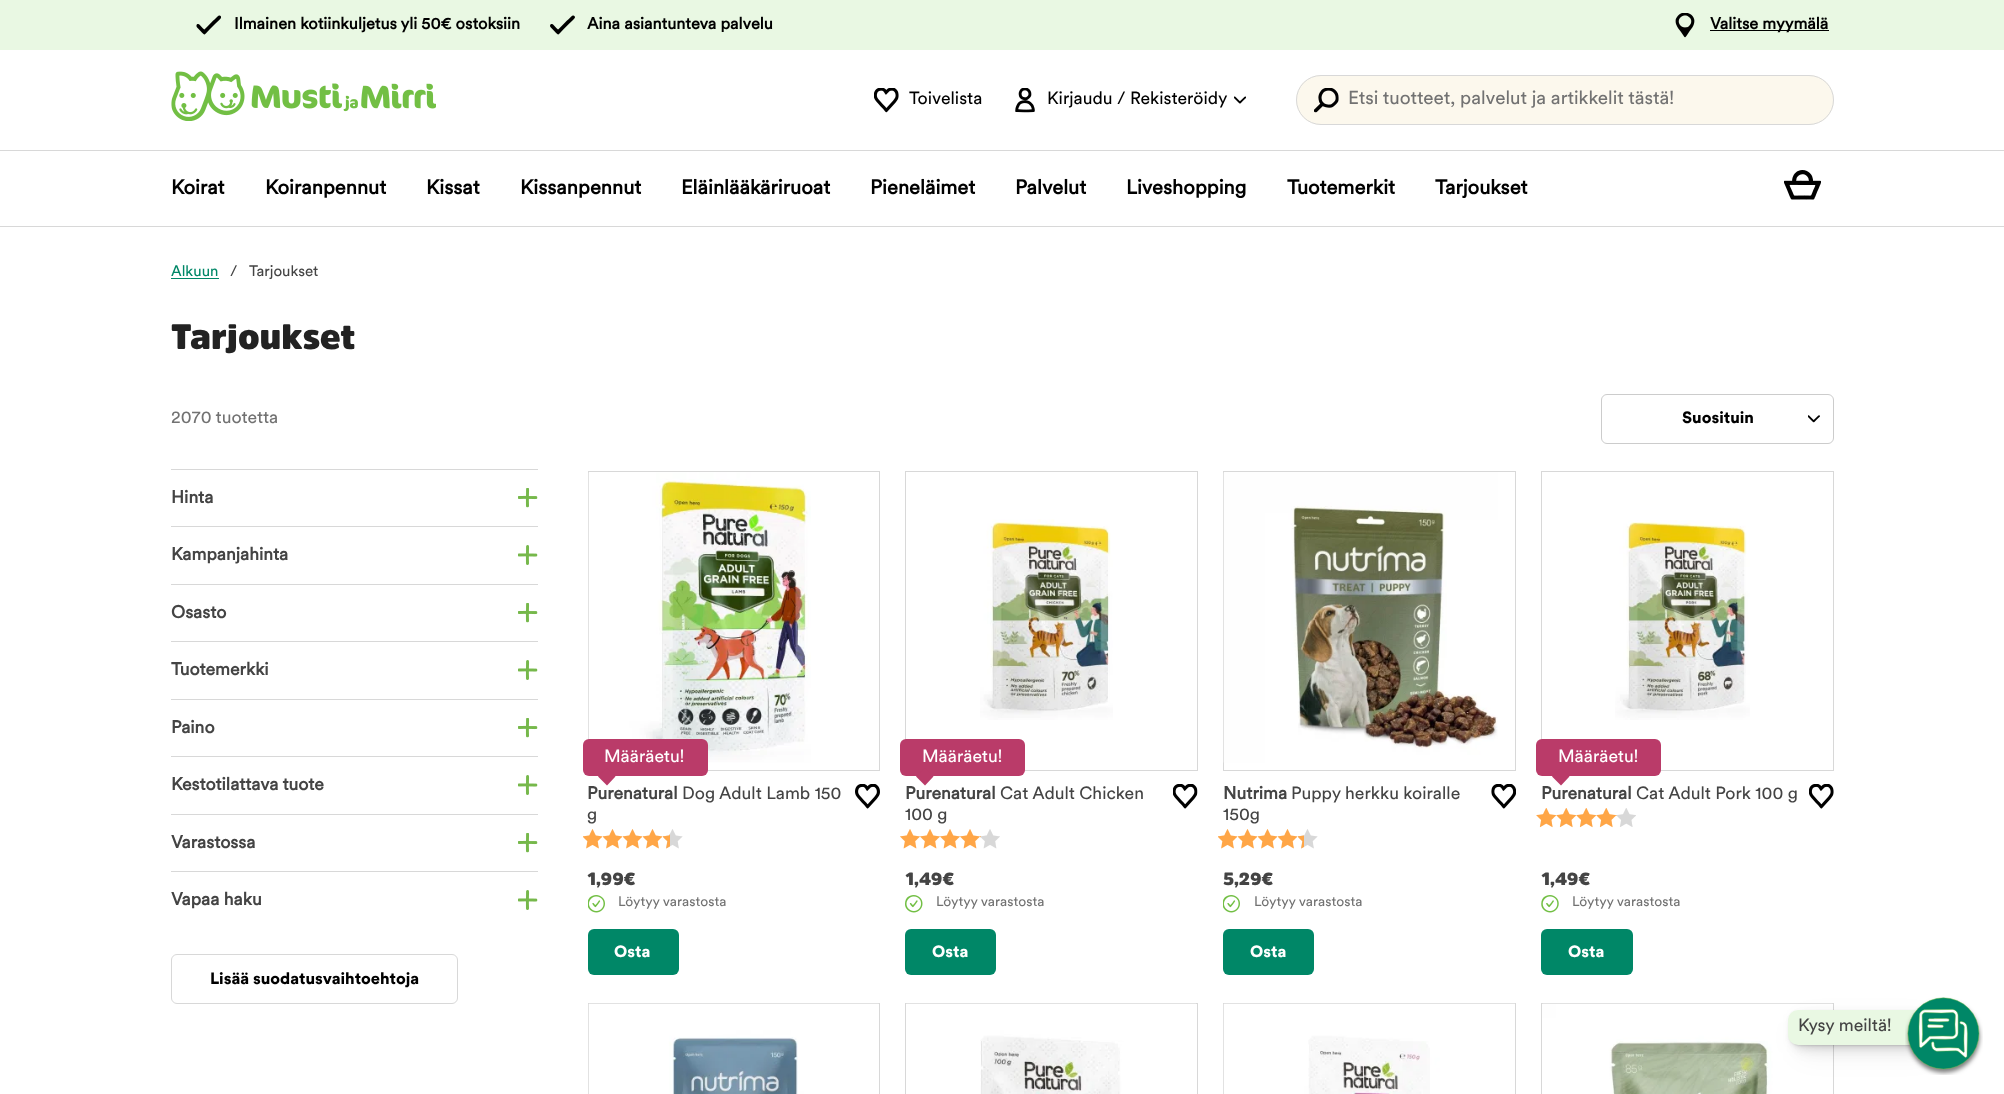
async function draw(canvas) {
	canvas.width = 2004;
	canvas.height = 1094;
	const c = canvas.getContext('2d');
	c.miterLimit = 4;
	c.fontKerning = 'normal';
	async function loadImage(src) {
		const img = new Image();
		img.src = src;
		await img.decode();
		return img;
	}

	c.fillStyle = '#fff';
	c.fillRect(0, 0, 2004, 1094);
	c.fillStyle = '#e9f8e3';
	c.fillRect(0, 0, 2004, 50);
	c.drawImage(await loadImage('img1.png'), 196, 15, 25, 20);
	c.font = 'bold 16.25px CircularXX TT';
	c.fillStyle = '#000';
	c.fillText('Ilmainen kotiinkuljetus yli 50€ ostoksiin', 234, 29);
	c.drawImage(await loadImage('img2.png'), 550, 15, 25, 20);
	c.fillText('Aina asiantunteva palvelu', 587, 29);
	c.drawImage(await loadImage('img3.png'), 1675, 13, 20, 25);
	c.fillRect(1710, 30, 119, 1);
	c.fillText('Valitse myymälä', 1710, 29);
	c.drawImage(await loadImage('img4.png'), 171, 71, 265, 50);
	c.drawImage(await loadImage('img5.png'), 874, 88, 25, 25);
	c.font = '17.5px CircularXX TT';
	c.fillText('Toivelista', 909, 104);
	c.drawImage(await loadImage('img6.png'), 1015, 88, 20, 25);
	c.fillText('Kirjaudu / Rekisteröidy', 1047, 104);
	c.drawImage(await loadImage('img7.png'), 1234, 96, 12, 8);
	c.fillStyle = '#fcf8ed';
	c.beginPath();
	c.roundRect(1296, 75, 538, 50, 25);
	c.fill();
	c.drawImage(await loadImage('img8.png'), 1314, 88, 25, 25);
	c.beginPath();
	c.roundRect(1296.5, 75.5, 537, 49, 24.5);
	c.strokeStyle = '#d8d8d8';
	c.stroke();
	c.font = '18.75px CircularXX TT';
	c.fillStyle = '#727272';
	c.fillText('Etsi tuotteet, palvelut ja artikkelit tästä!', 1348, 104);
	c.fillStyle = '#d8d8d8';
	c.fillRect(0, 150, 2004, 1);
	c.fillRect(0, 226, 2004, 1);
	c.font = 'bold 20px CircularXX TT';
	c.fillStyle = '#000';
	for (const [text, x, y] of [
		['Koirat', 171, 194],
		['Koiranpennut', 265, 194],
		['Kissat', 426, 194],
		['Kissanpennut', 520, 194],
		['Eläinlääkäriruoat', 681, 194],
		['Pieneläimet', 870, 194],
		['Palvelut', 1015, 194],
		['Liveshopping', 1126, 194],
		['Tuotemerkit', 1287, 194],
		['Tarjoukset', 1435, 194],
	]) {
		c.fillText(text, x, y);
	}
	c.drawImage(await loadImage('img9.png'), 1784, 170, 37, 30);
	c.font = '15px CircularXX TT';
	c.fillStyle = '#008767';
	c.fillText('Alkuun', 171, 276);
	c.fillRect(171, 278, 48, 1);
	c.fillStyle = '#444';
	c.fillText('/', 230, 276);
	c.fillText('Tarjoukset', 249, 276);
	c.font = '35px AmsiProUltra';
	c.fillStyle = '#222';
	c.fillText('Tarjoukset', 171, 349);
	c.font = '17.5px CircularXX TT';
	c.fillStyle = '#727272';
	c.fillText('2070 tuotetta', 171, 423);
	c.drawImage(await loadImage('img10.png'), 518, 488, 20, 20);
	c.fillStyle = '#d8d8d8';
	c.fillRect(171, 469, 367, 1);
	c.font = 'bold 17.5px CircularXX TT';
	c.fillStyle = '#444';
	c.fillText('Hinta', 171, 503);
	c.drawImage(await loadImage('img11.png'), 518, 545, 20, 20);
	c.fillStyle = '#d8d8d8';
	c.fillRect(171, 526, 367, 1);
	c.fillStyle = '#444';
	c.fillText('Kampanjahinta', 171, 560);
	c.drawImage(await loadImage('img10.png'), 518, 603, 20, 20);
	c.fillStyle = '#d8d8d8';
	c.fillRect(171, 584, 367, 1);
	c.fillStyle = '#444';
	c.fillText('Osasto', 171, 618);
	c.drawImage(await loadImage('img11.png'), 518, 660, 20, 20);
	c.fillStyle = '#d8d8d8';
	c.fillRect(171, 641, 367, 1);
	c.fillStyle = '#444';
	c.fillText('Tuotemerkki', 171, 675);
	c.drawImage(await loadImage('img10.png'), 518, 718, 20, 20);
	c.fillStyle = '#d8d8d8';
	c.fillRect(171, 699, 367, 1);
	c.fillStyle = '#444';
	c.fillText('Paino', 171, 733);
	c.drawImage(await loadImage('img11.png'), 518, 775, 20, 20);
	c.fillStyle = '#d8d8d8';
	c.fillRect(171, 756, 367, 1);
	c.fillStyle = '#444';
	c.fillText('Kestotilattava tuote', 171, 790);
	c.drawImage(await loadImage('img10.png'), 518, 833, 20, 20);
	c.fillStyle = '#d8d8d8';
	c.fillRect(171, 814, 367, 1);
	c.fillStyle = '#444';
	c.fillText('Varastossa', 171, 848);
	c.drawImage(await loadImage('img11.png'), 518, 890, 20, 20);
	c.fillStyle = '#d8d8d8';
	c.fillRect(171, 871, 367, 1);
	c.fillStyle = '#444';
	c.fillText('Vapaa haku', 171, 905);
	c.beginPath();
	c.roundRect(171.5, 954.5, 286, 49, 5.5);
	c.stroke();
	c.font = '900 16.25px CircularXX TT';
	c.fillStyle = '#000';
	c.fillText('Lisää suodatusvaihtoehtoja', 210, 984);
	c.drawImage(await loadImage('img12.png'), 1808, 415, 12, 8);
	c.beginPath();
	c.roundRect(1601.5, 394.5, 232, 49, 5.5);
	c.strokeStyle = '#ccc';
	c.stroke();
	c.fillText('Suosituin', 1682, 423);
	c.strokeStyle = '#d8d8d8';
	c.strokeRect(588.5, 471.5, 291, 299);
	c.drawImage(await loadImage('img13.png'), 588, 472, 223, 291);
	c.fillStyle = '#ba3b69';
	c.beginPath();
	c.roundRect(583, 739, 125, 37, 6);
	c.fill();
	c.font = '17.5px CircularXX TT';
	c.fillStyle = '#fff';
	c.fillText('Määräetu!', 604, 762);
	c.fillStyle = '#ba3b69';
	c.beginPath();
	c.moveTo(607, 768);
	c.lineTo(615.5, 776.5);
	c.lineTo(607, 785.5);
	c.lineTo(598, 776.5);
	c.closePath();
	c.fill();
	c.font = 'bold 17.5px CircularXX TT';
	c.fillStyle = '#444';
	c.fillText('Purenatural', 587, 799);
	c.font = '17.5px CircularXX TT';
	c.fillText('Dog Adult Lamb 150', 682, 799);
	c.fillText('g', 587, 820);
	c.drawImage(await loadImage('img14.png'), 855, 784, 25, 25);
	c.drawImage(await loadImage('img15.png'), 583, 829, 20, 20);
	c.drawImage(await loadImage('img15.png'), 603, 829, 20, 20);
	c.drawImage(await loadImage('img15.png'), 623, 829, 20, 20);
	c.drawImage(await loadImage('img15.png'), 643, 829, 20, 20);
	c.drawImage(await loadImage('img16.png'), 663, 829, 20, 20);
	c.drawImage(await loadImage('img17.png'), 663, 834, 7, 15);
	c.font = '17.5px AmsiProUltra';
	c.fillText('1,99€', 587, 885);
	c.drawImage(await loadImage('img18.png'), 588, 895, 17, 18);
	c.font = '13.75px CircularXX TT';
	c.fillStyle = '#727272';
	c.fillText('Löytyy varastosta', 618, 906);
	c.fillStyle = '#008767';
	c.beginPath();
	c.roundRect(588, 929, 91, 46, 6);
	c.fill();
	c.font = '900 16.25px CircularXX TT';
	c.fillStyle = '#fff';
	c.fillText('Osta', 614, 957);
	c.strokeRect(905.5, 471.5, 292, 299);
	c.drawImage(await loadImage('img19.png'), 980, 519, 133, 201);
	c.fillStyle = '#ba3b69';
	c.beginPath();
	c.roundRect(900, 739, 125, 37, 6);
	c.fill();
	c.font = '17.5px CircularXX TT';
	c.fillStyle = '#fff';
	c.fillText('Määräetu!', 922, 762);
	c.fillStyle = '#ba3b69';
	c.beginPath();
	c.moveTo(925, 768);
	c.lineTo(933.5, 776.5);
	c.lineTo(925, 785.5);
	c.lineTo(916, 776.5);
	c.closePath();
	c.fill();
	c.font = 'bold 17.5px CircularXX TT';
	c.fillStyle = '#444';
	c.fillText('Purenatural', 905, 799);
	c.font = '17.5px CircularXX TT';
	c.fillText('Cat Adult Chicken', 1000, 799);
	c.fillText('100 g', 905, 820);
	c.drawImage(await loadImage('img20.png'), 1173, 784, 25, 25);
	c.drawImage(await loadImage('img21.png'), 900, 829, 20, 20);
	c.drawImage(await loadImage('img21.png'), 920, 829, 20, 20);
	c.drawImage(await loadImage('img21.png'), 940, 829, 20, 20);
	c.drawImage(await loadImage('img21.png'), 960, 829, 20, 20);
	c.drawImage(await loadImage('img22.png'), 980, 829, 20, 20);
	c.drawImage(await loadImage('img23.png'), 980, 836, 1, 2);
	c.font = '17.5px AmsiProUltra';
	c.fillText('1,49€', 905, 885);
	c.drawImage(await loadImage('img24.png'), 905, 895, 18, 18);
	c.font = '13.75px CircularXX TT';
	c.fillStyle = '#727272';
	c.fillText('Löytyy varastosta', 936, 906);
	c.fillStyle = '#008767';
	c.beginPath();
	c.roundRect(905, 929, 91, 46, 6);
	c.fill();
	c.font = '900 16.25px CircularXX TT';
	c.fillStyle = '#fff';
	c.fillText('Osta', 932, 957);
	c.strokeRect(1223.5, 471.5, 292, 299);
	c.drawImage(await loadImage('img25.png'), 1223, 472, 275, 291);
	c.font = 'bold 17.5px CircularXX TT';
	c.fillStyle = '#444';
	c.fillText('Nutrima', 1223, 799);
	c.font = '17.5px CircularXX TT';
	c.fillText('Puppy herkku koiralle', 1291, 799);
	c.fillText('150g', 1223, 820);
	c.drawImage(await loadImage('img26.png'), 1491, 784, 25, 25);
	c.drawImage(await loadImage('img15.png'), 1218, 829, 20, 20);
	c.drawImage(await loadImage('img15.png'), 1238, 829, 20, 20);
	c.drawImage(await loadImage('img15.png'), 1258, 829, 20, 20);
	c.drawImage(await loadImage('img15.png'), 1278, 829, 20, 20);
	c.drawImage(await loadImage('img16.png'), 1298, 829, 20, 20);
	c.drawImage(await loadImage('img27.png'), 1298, 835, 6, 14);
	c.font = '17.5px AmsiProUltra';
	c.fillText('5,29€', 1223, 885);
	c.drawImage(await loadImage('img18.png'), 1223, 895, 17, 18);
	c.font = '13.75px CircularXX TT';
	c.fillStyle = '#727272';
	c.fillText('Löytyy varastosta', 1254, 906);
	c.fillStyle = '#008767';
	c.beginPath();
	c.roundRect(1223, 929, 91, 46, 6);
	c.fill();
	c.font = '900 16.25px CircularXX TT';
	c.fillStyle = '#fff';
	c.fillText('Osta', 1250, 957);
	c.strokeRect(1541.5, 471.5, 292, 299);
	c.drawImage(await loadImage('img28.png'), 1615, 520, 135, 200);
	c.fillStyle = '#ba3b69';
	c.beginPath();
	c.roundRect(1536, 739, 125, 37, 6);
	c.fill();
	c.font = '17.5px CircularXX TT';
	c.fillStyle = '#fff';
	c.fillText('Määräetu!', 1558, 762);
	c.fillStyle = '#ba3b69';
	c.beginPath();
	c.moveTo(1561, 768);
	c.lineTo(1569.5, 776.5);
	c.lineTo(1561, 785.5);
	c.lineTo(1552, 776.5);
	c.closePath();
	c.fill();
	c.font = 'bold 17.5px CircularXX TT';
	c.fillStyle = '#444';
	c.fillText('Purenatural', 1541, 799);
	c.font = '17.5px CircularXX TT';
	c.fillText('Cat Adult Pork 100 g', 1636, 799);
	c.drawImage(await loadImage('img29.png'), 1809, 784, 25, 25);
	c.drawImage(await loadImage('img30.png'), 1536, 808, 20, 20);
	c.drawImage(await loadImage('img30.png'), 1556, 808, 20, 20);
	c.drawImage(await loadImage('img30.png'), 1576, 808, 20, 20);
	c.drawImage(await loadImage('img30.png'), 1596, 808, 20, 20);
	c.drawImage(await loadImage('img31.png'), 1617, 808, 19, 19);
	c.fillStyle = '#f5cb9f';
	c.fillRect(1616, 815, 1, 1);
	c.font = '17.5px AmsiProUltra';
	c.fillStyle = '#444';
	c.fillText('1,49€', 1541, 885);
	c.drawImage(await loadImage('img32.png'), 1541, 895, 18, 18);
	c.font = '13.75px CircularXX TT';
	c.fillStyle = '#727272';
	c.fillText('Löytyy varastosta', 1572, 906);
	c.fillStyle = '#008767';
	c.beginPath();
	c.roundRect(1541, 929, 92, 46, 6);
	c.fill();
	c.font = '900 16.25px CircularXX TT';
	c.fillStyle = '#fff';
	c.fillText('Osta', 1568, 957);
	c.strokeRect(588.5, 1003.5, 291, 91);
	c.drawImage(await loadImage('img33.png'), 588, 1003, 291, 91);
	c.strokeRect(905.5, 1003.5, 292, 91);
	c.drawImage(await loadImage('img34.png'), 906, 1003, 290, 91);
	c.strokeRect(1223.5, 1003.5, 292, 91);
	c.drawImage(await loadImage('img35.png'), 1223, 1003, 292, 91);
	c.strokeRect(1541.5, 1003.5, 292, 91);
	c.drawImage(await loadImage('img36.png'), 1542, 1003, 291, 91);
	c.fillStyle = '#0000000f';
	c.filter = 'blur(13.5px)';
	c.beginPath();
	c.roundRect(1799, 1021, 131, 33, 9);
	c.fill();
	c.filter = 'none';
	c.fillStyle = '#00000012';
	c.filter = 'blur(7px)';
	c.beginPath();
	c.roundRect(1795, 1018, 131, 32, 9);
	c.fill();
	c.filter = 'none';
	c.fillStyle = '#00000017';
	c.filter = 'blur(4px)';
	c.beginPath();
	c.roundRect(1793, 1015, 131, 33, 9);
	c.fill();
	c.filter = 'none';
	c.fillStyle = '#0000001c';
	c.filter = 'blur(2px)';
	c.beginPath();
	c.roundRect(1790, 1013, 131, 32, 9);
	c.fill();
	c.filter = 'none';
	c.fillStyle = '#00000026';
	c.filter = 'blur(1px)';
	c.beginPath();
	c.roundRect(1790, 1013, 131, 32, 9);
	c.fill();
	c.filter = 'none';
	c.fillStyle = '#e9f8e3';
	c.beginPath();
	c.roundRect(1788, 1010, 133, 35, [10, 0, 0, 10]);
	c.fill();
	c.font = '17.5px CircularXX TT';
	c.fillStyle = '#444';
	c.fillText('Kysy meiltä!', 1798, 1031);
	c.drawImage(await loadImage('img37.png'), 1905, 997, 78, 78);
}

draw(document.querySelector('canvas'));
